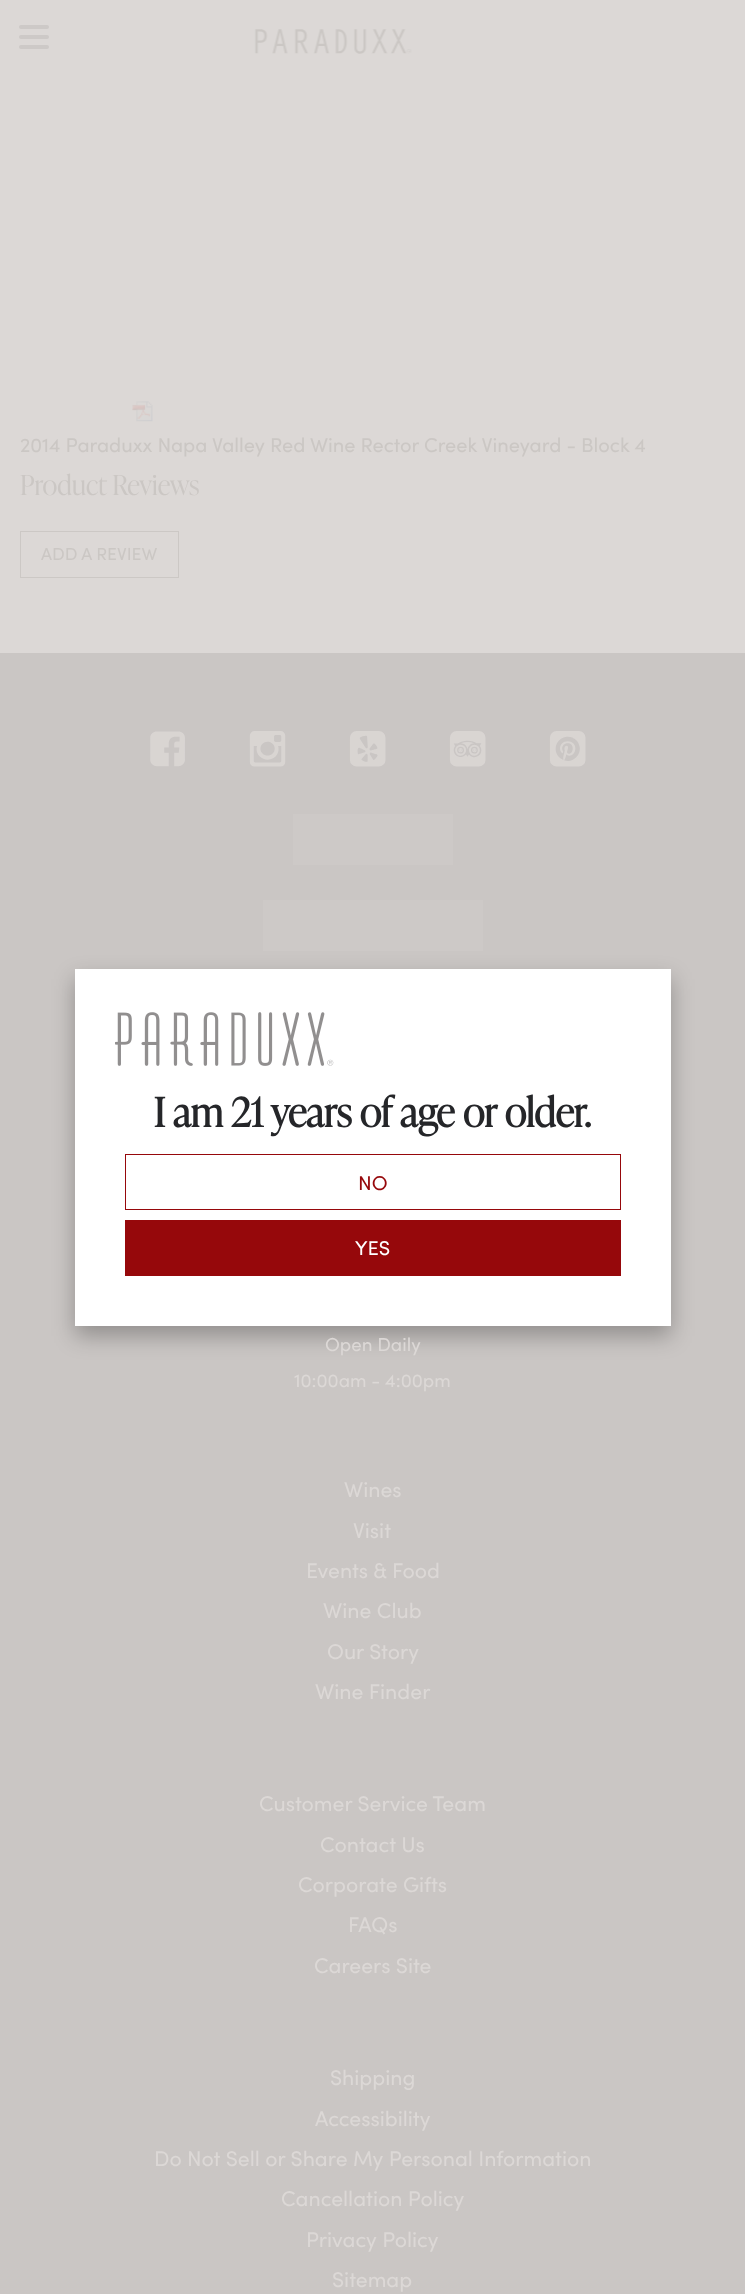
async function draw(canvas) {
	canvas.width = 745;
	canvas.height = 2294;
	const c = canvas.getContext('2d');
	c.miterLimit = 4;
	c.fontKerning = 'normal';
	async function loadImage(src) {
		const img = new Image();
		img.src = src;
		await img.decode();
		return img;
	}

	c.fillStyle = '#dcd8d6';
	c.fillRect(0, 0, 745, 2294);
	c.fillStyle = '#cdc9c7';
	c.beginPath();
	c.roundRect(19, 25, 30, 4, 2);
	c.fill();
	c.beginPath();
	c.roundRect(19, 35, 30, 4, 2);
	c.fill();
	c.beginPath();
	c.roundRect(19, 45, 30, 4, 2);
	c.fill();
	c.drawImage(await loadImage('img1.png'), 254, 29, 158, 25);
	c.drawImage(await loadImage('img2.png'), 132, 401, 21, 21);
	c.font = '20px Sofia';
	c.fillStyle = '#cbc7c4';
	c.fillText('2014 Paraduxx Napa Valley Red Wine Rector Creek Vineyard - Block 4', 20, 452);
	c.font = '300 27.5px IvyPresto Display';
	c.fillText('Product Reviews', 20, 495);
	c.strokeStyle = '#ccc8c5';
	c.strokeRect(20.5, 531.5, 158, 46);
	c.font = '17.5px Sofia';
	c.fillText('ADD A REVIEW', 41, 560);
	c.fillStyle = '#cac6c4';
	c.fillRect(0, 653, 745, 1641);
	c.fillStyle = '#cdc9c7';
	c.fillRect(263, 900, 220, 51);
	c.fillStyle = '#00000047';
	c.filter = 'blur(11px)';
	c.beginPath();
	c.rect(75, 979, 596, 357);
	c.fill();
	c.filter = 'none';
	c.fillStyle = '#fff';
	c.fillRect(75, 969, 596, 357);
	c.drawImage(await loadImage('img3.png'), 115, 1012, 219, 54);
	c.font = 'bold 40px IvyPresto Display';
	c.fillStyle = '#252629';
	c.fillText('I am 21 years of age or older.', 154, 1127);
	c.strokeStyle = '#96080b';
	c.strokeRect(125.5, 1154.5, 495, 55);
	c.font = '20px Sofia';
	c.fillStyle = '#96080b';
	c.fillText('NO', 358, 1190);
	c.fillRect(125, 1220, 496, 56);
	c.fillStyle = '#fff';
	c.fillText('YES', 355, 1255);
	c.drawImage(await loadImage('img4.png'), 150, 731, 35, 36);
	c.drawImage(await loadImage('img5.png'), 249, 731, 37, 36);
	c.drawImage(await loadImage('img6.png'), 349, 731, 37, 36);
	c.drawImage(await loadImage('img7.png'), 449, 731, 37, 36);
	c.drawImage(await loadImage('img8.png'), 549, 731, 37, 36);
	c.fillStyle = '#cdc9c7';
	c.fillRect(293, 814, 160, 51);
	c.font = '18.75px Sofia';
	c.fillStyle = '#dcd8d6';
	c.fillText('Open Daily', 325, 1351);
	c.fillText('10:00am - 4:00pm', 294, 1387);
	c.font = '21.25px Sofia';
	for (const [text, x, y] of [
		['Wines', 344, 1497],
		['Visit', 353, 1538],
		['Events & Food', 306, 1578],
		['Wine Club', 323, 1618],
		['Our Story', 327, 1659],
		['Wine Finder', 315, 1699],
		['Customer Service Team', 259, 1811],
		['Contact Us', 320, 1852],
		['Corporate Gifts', 298, 1892],
		['FAQs', 348, 1932],
		['Careers Site', 314, 1973],
		['Shipping', 330, 2085],
		['Accessibility', 315, 2126],
		['Do Not Sell or Share My Personal Information', 154, 2166],
		['Cancellation Policy', 281, 2206],
		['Privacy Policy', 306, 2247],
		['Sitemap', 332, 2287],
	]) {
		c.fillText(text, x, y);
	}
}

draw(document.querySelector('canvas'));
